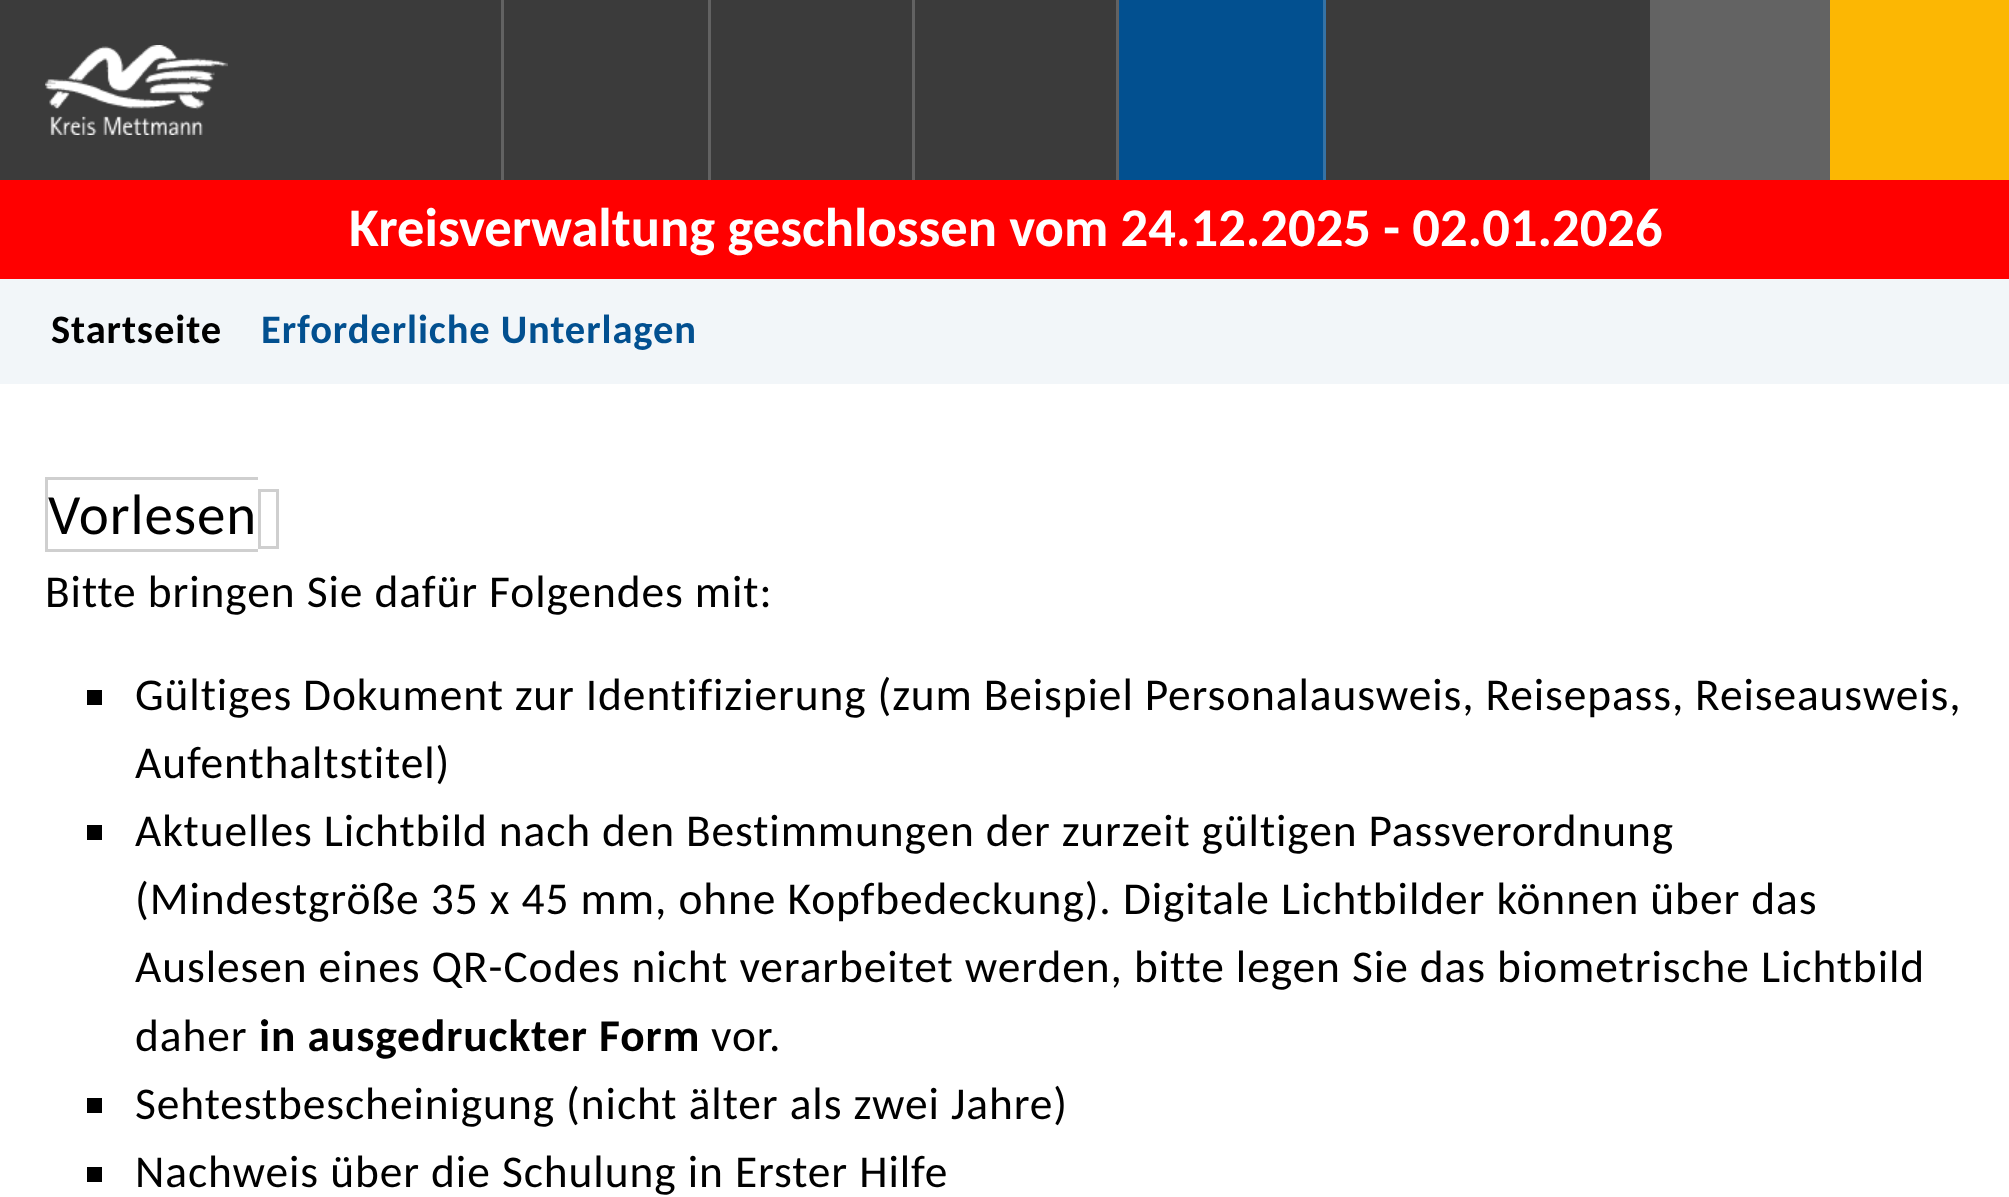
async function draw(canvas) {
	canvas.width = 2009;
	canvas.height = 1197;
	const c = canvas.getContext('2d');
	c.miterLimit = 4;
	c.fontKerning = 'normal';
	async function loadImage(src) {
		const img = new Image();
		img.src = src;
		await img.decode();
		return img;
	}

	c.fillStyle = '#3b3b3b';
	c.fillRect(0, 0, 2009, 1197);
	c.drawImage(await loadImage('img1.png'), 45, 45, 183, 90);
	for (const [x, y, w, h, color] of [
		[708, 0, 3, 180, '#626262'],
		[501, 0, 3, 180, '#626262'],
		[912, 0, 3, 180, '#626262'],
		[1116, 0, 3, 180, '#626262'],
		[1119, 0, 204, 180, '#025090'],
		[1323, 0, 3, 180, '#3573a6'],
		[1650, 0, 180, 180, '#636363'],
		[1830, 0, 179, 180, '#fcb703'],
		[0, 180, 2009, 99, '#f00'],
	]) {
		c.fillStyle = color;
		c.fillRect(x, y, w, h);
	}
	c.font = 'bold 54.55px Carlito';
	c.fillStyle = '#fff';
	c.fillText('Kreisverwaltung geschlossen vom 24.12.2025 - 02.01.2026', 349, 246);
	c.fillStyle = '#f2f6f9';
	c.fillRect(0, 279, 2009, 105);
	c.letterSpacing = '0.9px';
	c.font = 'bold 40.6px Carlito';
	c.fillStyle = '#000';
	c.fillText('Startseite', 51, 343);
	c.fillStyle = '#025090';
	c.fillText('Erforderliche Unterlagen', 261, 343);
	c.fillStyle = '#fff';
	c.fillRect(0, 384, 2009, 813);
	c.font = '57px Carlito';
	c.fillStyle = '#000';
	c.fillText('Vorlesen', 48, 534);
	for (const [x, y, w, h, color] of [
		[45, 477, 213, 3, '#cfcfcf'],
		[45, 549, 213, 3, '#cfcfcf'],
		[45, 477, 3, 75, '#cfcfcf'],
		[258, 489, 21, 3, '#cfcfcf'],
		[276, 489, 3, 60, '#cfcfcf'],
		[258, 546, 21, 3, '#cfcfcf'],
		[258, 492, 3, 54, '#cfcfcf'],
	]) {
		c.fillStyle = color;
		c.fillRect(x, y, w, h);
	}
	c.font = '45.45px Carlito';
	c.fillStyle = '#000';
	c.fillText('Bitte bringen Sie dafür Folgendes mit:', 45, 607);
	c.fillRect(87, 690, 15, 15);
	c.wordSpacing = '-0.25px';
	c.fillText('Gültiges Dokument zur Identifizierung (zum Beispiel Personalausweis, Reisepass, Reiseausweis,', 135, 710);
	c.wordSpacing = '0px';
	c.fillText('Aufenthaltstitel)', 135, 778);
	c.fillRect(87, 825, 15, 15);
	c.wordSpacing = '-0.25px';
	c.fillText('Aktuelles Lichtbild nach den Bestimmungen der zurzeit gültigen Passverordnung', 135, 846);
	c.wordSpacing = '0px';
	for (const [text, x, y] of [
		['(Mindestgröße 35 x 45 mm, ohne Kopfbedeckung). Digitale Lichtbilder können über das', 135, 914],
		['Auslesen eines QR-Codes nicht verarbeitet werden, bitte legen Sie das biometrische Lichtbild', 135, 982],
		['daher', 135, 1051],
	]) {
		c.fillText(text, x, y);
	}
	c.font = 'bold 45.45px Carlito';
	c.fillText('in ausgedruckter Form', 259, 1051);
	c.font = '45.45px Carlito';
	c.fillText('vor.', 711, 1051);
	c.fillRect(87, 1098, 15, 15);
	c.fillText('Sehtestbescheinigung (nicht älter als zwei Jahre)', 135, 1119);
	c.fillRect(87, 1167, 15, 15);
	c.fillText('Nachweis über die Schulung in Erster Hilfe', 135, 1187);
}

draw(document.querySelector('canvas'));
